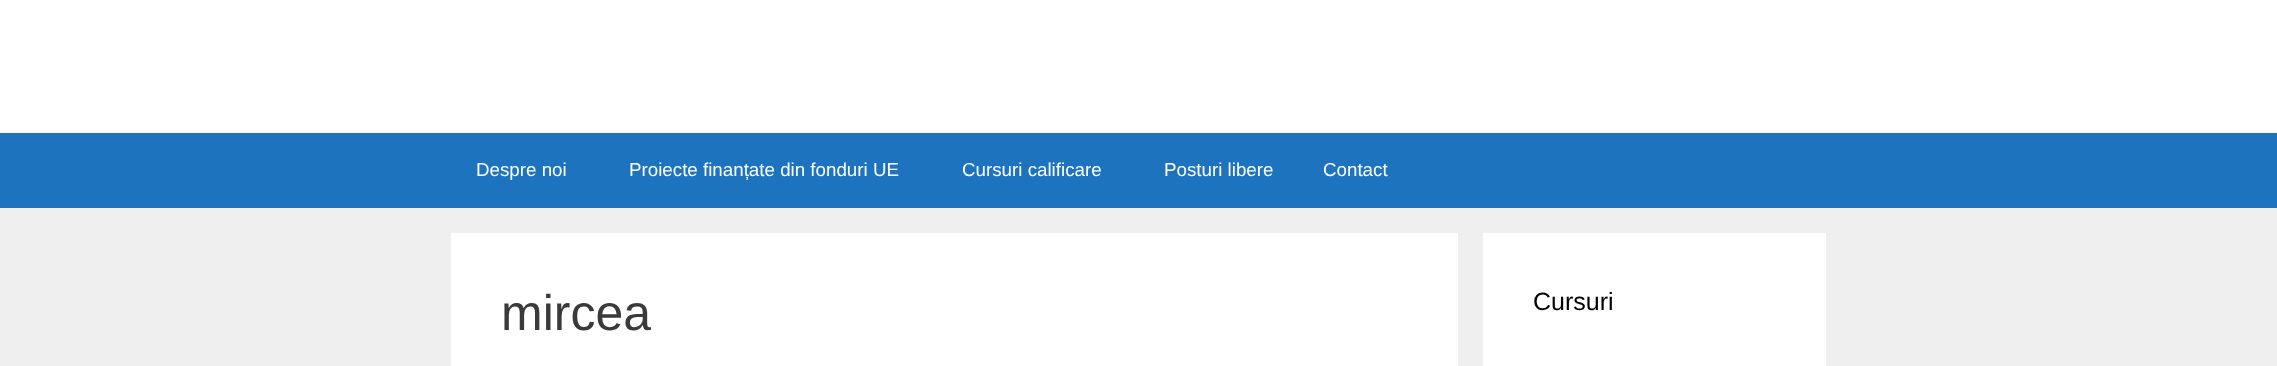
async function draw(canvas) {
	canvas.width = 2277;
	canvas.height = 366;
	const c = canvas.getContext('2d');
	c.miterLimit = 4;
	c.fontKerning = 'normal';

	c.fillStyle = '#efefef';
	c.fillRect(0, 0, 2277, 366);
	c.fillStyle = '#fff';
	c.fillRect(0, 0, 2277, 133);
	c.fillStyle = '#1e73be';
	c.fillRect(0, 133, 2277, 75);
	c.font = '18.75px Liberation Sans';
	c.fillStyle = '#fff';
	for (const [text, x, y] of [
		['Despre noi', 476, 176],
		['Proiecte finanțate din fonduri UE', 629, 176],
		['Cursuri calificare', 962, 176],
		['Posturi libere', 1164, 176],
		['Contact', 1323, 176],
	]) {
		c.fillText(text, x, y);
	}
	c.fillRect(451, 233, 1007, 133);
	c.font = '50px Liberation Sans';
	c.fillStyle = '#3a3a3a';
	c.fillText('mircea', 501, 330);
	c.fillStyle = '#fff';
	c.fillRect(1483, 233, 343, 133);
	c.font = '25px Liberation Sans';
	c.fillStyle = '#000';
	c.fillText('Cursuri', 1533, 310);
}

draw(document.querySelector('canvas'));
